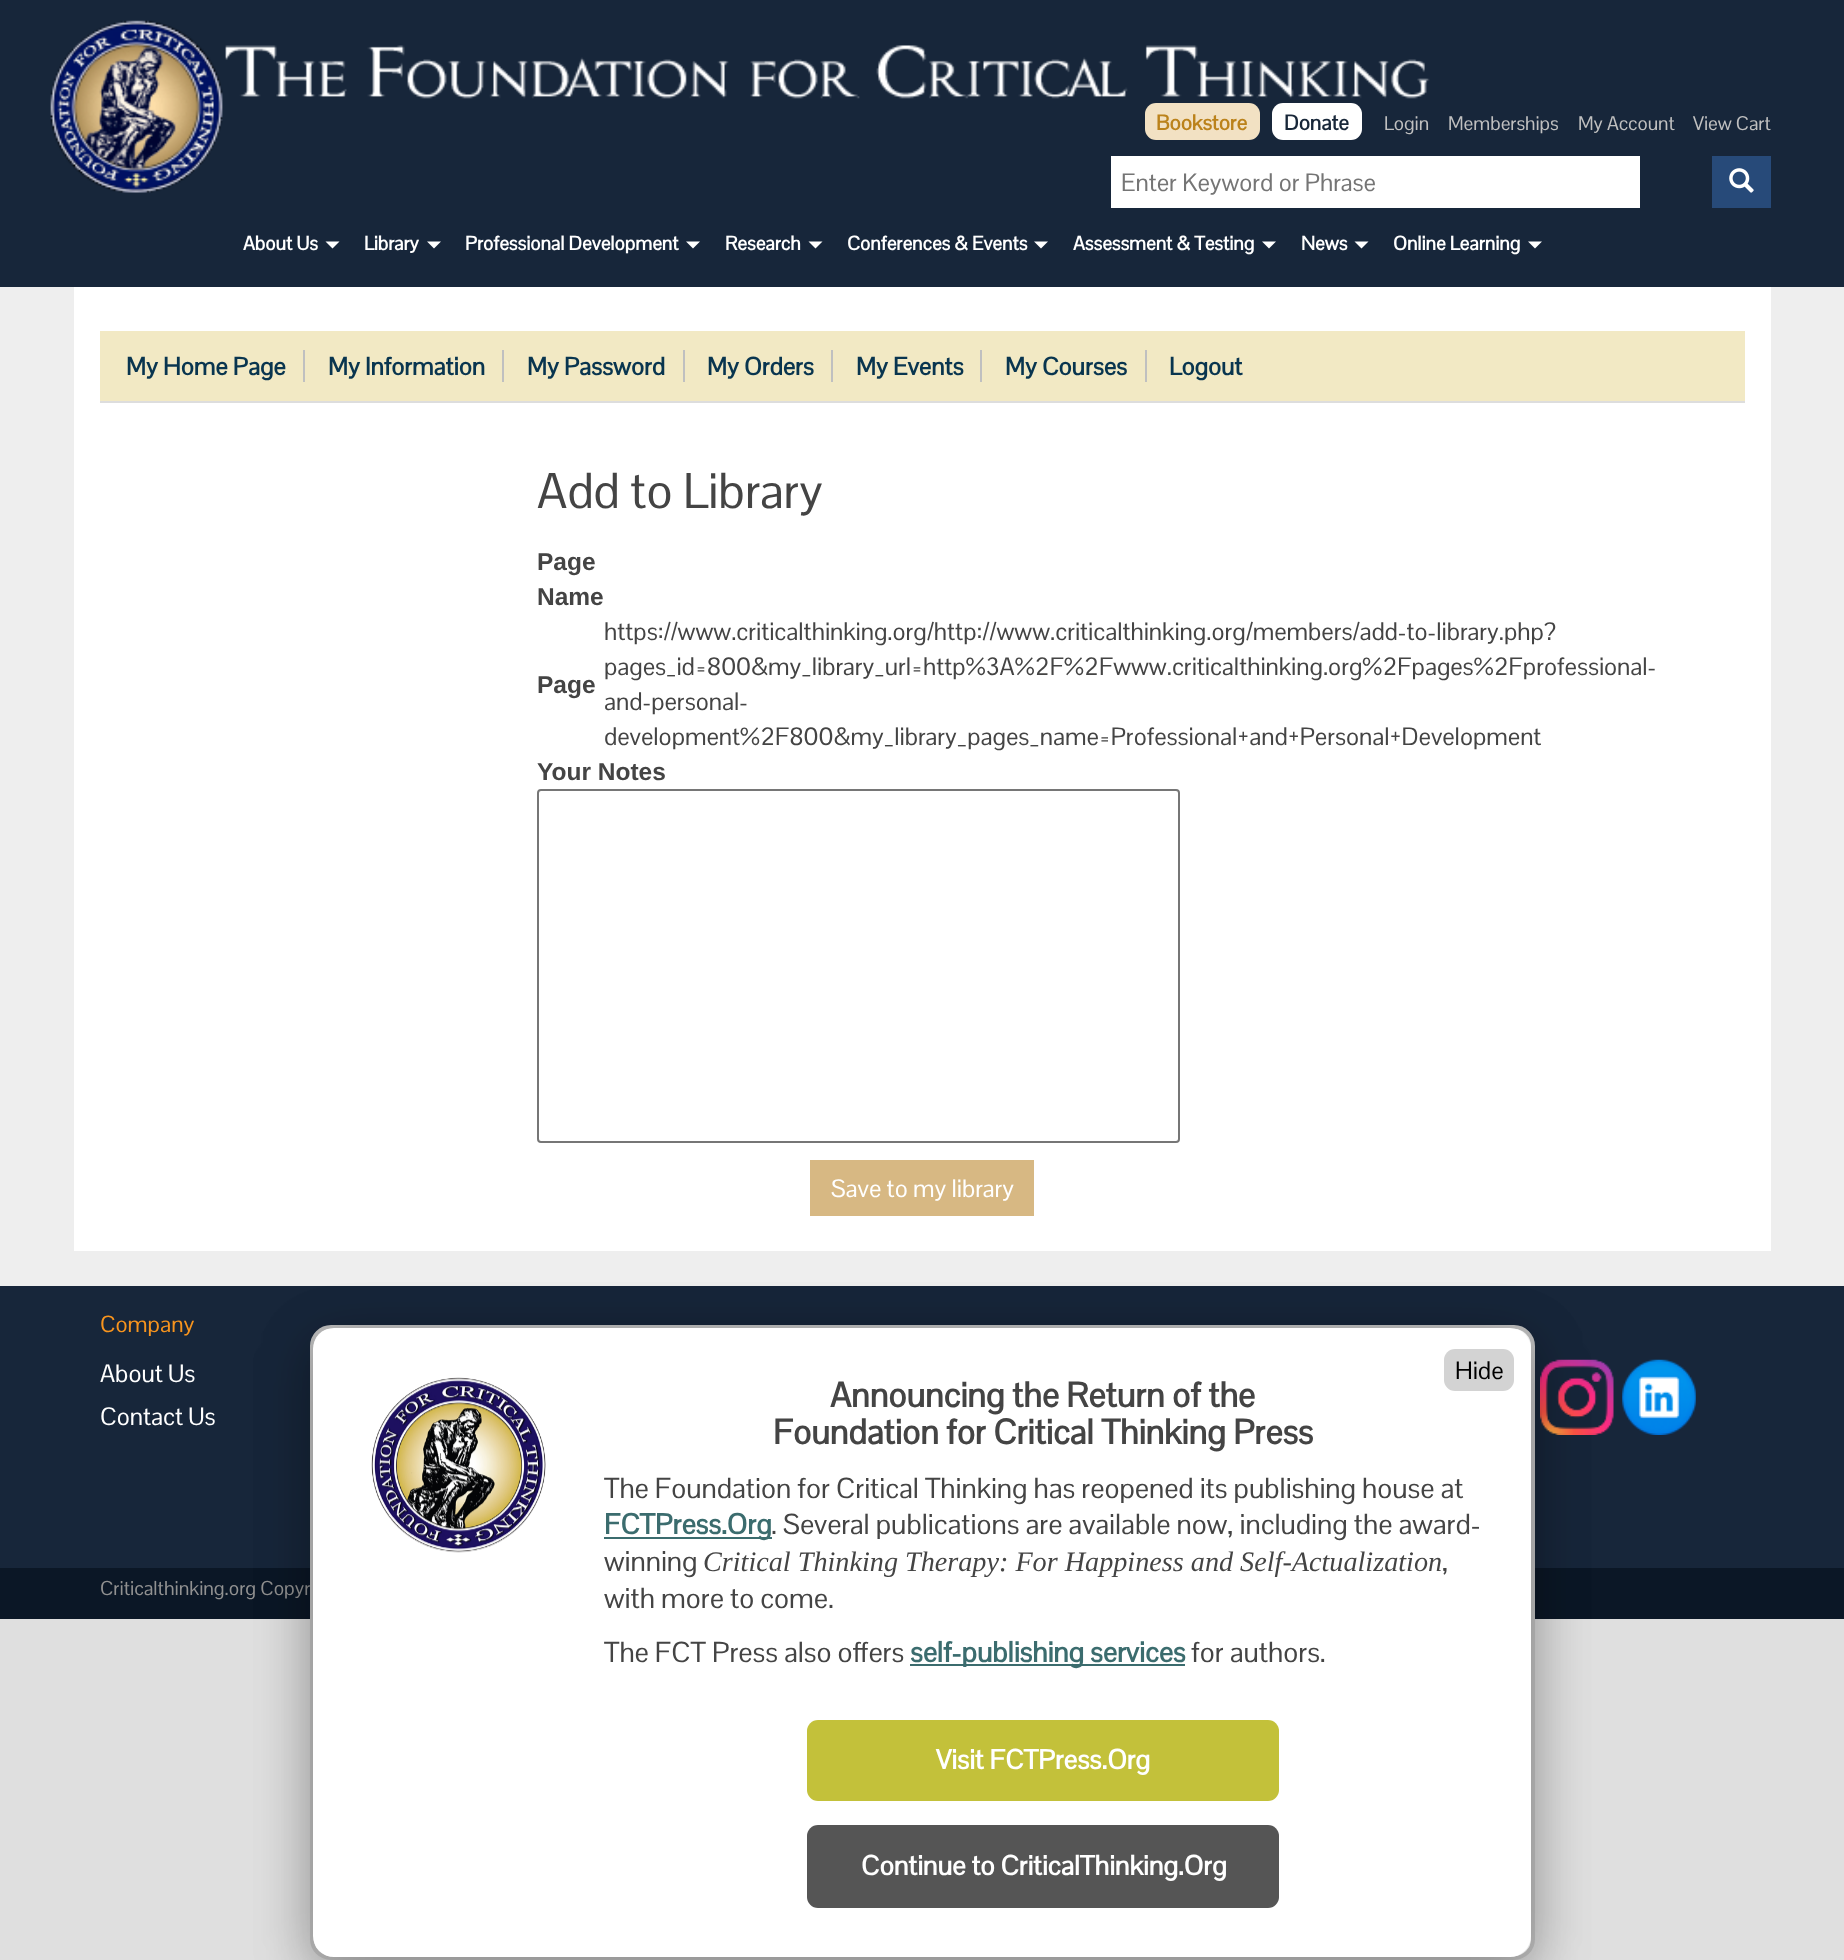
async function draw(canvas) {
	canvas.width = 1844;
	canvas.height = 1960;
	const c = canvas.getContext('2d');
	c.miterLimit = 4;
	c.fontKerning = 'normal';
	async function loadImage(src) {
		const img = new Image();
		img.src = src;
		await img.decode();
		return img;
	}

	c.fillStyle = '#dfdfdf';
	c.fillRect(0, 0, 1844, 1960);
	c.fillStyle = '#eee';
	c.fillRect(0, 287, 1844, 999);
	c.fillStyle = '#17263a';
	c.fillRect(0, 0, 1844, 287);
	c.drawImage(await loadImage('img1.png'), 50, 20, 1380, 173);
	c.fillStyle = '#f2e1c3';
	c.beginPath();
	c.roundRect(1145, 103, 115, 37, 11);
	c.fill();
	c.font = 'bold 21px Pontano Sans';
	c.fillStyle = '#bb821b';
	c.fillText('Bookstore', 1156, 130);
	c.fillStyle = '#fff';
	c.beginPath();
	c.roundRect(1272, 103, 90, 37, 11);
	c.fill();
	c.fillStyle = '#182739';
	c.fillText('Donate', 1284, 130);
	c.font = '19.25px Pontano Sans';
	c.fillStyle = '#c0c0c0';
	for (const [text, x, y] of [
		['Login', 1384, 130],
		['Memberships', 1448, 130],
		['My Account', 1578, 130],
		['View Cart', 1693, 130],
	]) {
		c.fillText(text, x, y);
	}
	c.fillStyle = '#fff';
	c.fillRect(1111, 156, 529, 52);
	c.font = '24.5px Pontano Sans';
	c.fillStyle = '#757575';
	c.fillText('Enter Keyword or Phrase', 1121, 191);
	c.fillStyle = '#274a79';
	c.fillRect(1712, 156, 59, 52);
	c.drawImage(await loadImage('img2.png'), 1729, 168, 25, 25);
	c.font = 'bold 19.25px Pontano Sans';
	c.fillStyle = '#fff';
	c.fillText('About Us', 243, 250);
	c.beginPath();
	c.moveTo(325.5, 241.5);
	c.lineTo(339.5, 241.5);
	c.lineTo(332.5, 248.5);
	c.closePath();
	c.fill();
	c.fillText('Library', 364, 250);
	c.beginPath();
	c.moveTo(427, 241.5);
	c.lineTo(441, 241.5);
	c.lineTo(434, 248.5);
	c.closePath();
	c.fill();
	c.fillText('Professional Development', 465, 250);
	c.beginPath();
	c.moveTo(686, 241.5);
	c.lineTo(700, 241.5);
	c.lineTo(693, 248.5);
	c.closePath();
	c.fill();
	c.fillText('Research', 725, 250);
	c.beginPath();
	c.moveTo(808.5, 241.5);
	c.lineTo(822.5, 241.5);
	c.lineTo(815.5, 248.5);
	c.closePath();
	c.fill();
	c.fillText('Conferences & Events', 847, 250);
	c.beginPath();
	c.moveTo(1034, 241.5);
	c.lineTo(1048, 241.5);
	c.lineTo(1041, 248.5);
	c.closePath();
	c.fill();
	c.fillText('Assessment & Testing', 1073, 250);
	c.beginPath();
	c.moveTo(1262, 241.5);
	c.lineTo(1276, 241.5);
	c.lineTo(1269, 248.5);
	c.closePath();
	c.fill();
	c.fillText('News', 1301, 250);
	c.beginPath();
	c.moveTo(1354.5, 241.5);
	c.lineTo(1368.5, 241.5);
	c.lineTo(1361.5, 248.5);
	c.closePath();
	c.fill();
	c.fillText('Online Learning', 1393, 250);
	c.beginPath();
	c.moveTo(1528, 241.5);
	c.lineTo(1542, 241.5);
	c.lineTo(1535, 248.5);
	c.closePath();
	c.fill();
	for (const [x, y, w, h, color] of [
		[74, 287, 1697, 964, '#fff'],
		[100, 331, 1645, 70, '#f2e9c4'],
		[100, 401, 1645, 2, '#ddd'],
	]) {
		c.fillStyle = color;
		c.fillRect(x, y, w, h);
	}
	c.font = 'bold 24.5px Pontano Sans';
	c.fillStyle = '#09354f';
	c.fillText('My Home Page', 126, 375);
	c.fillStyle = '#c0c0c0';
	c.fillRect(303, 350, 2, 32);
	c.fillStyle = '#09354f';
	c.fillText('My Information', 328, 375);
	c.fillStyle = '#c0c0c0';
	c.fillRect(502, 350, 2, 32);
	c.fillStyle = '#09354f';
	c.fillText('My Password', 527, 375);
	c.fillStyle = '#c0c0c0';
	c.fillRect(683, 350, 2, 32);
	c.fillStyle = '#09354f';
	c.fillText('My Orders', 707, 375);
	c.fillStyle = '#c0c0c0';
	c.fillRect(831, 350, 2, 32);
	c.fillStyle = '#09354f';
	c.fillText('My Events', 856, 375);
	c.fillStyle = '#c0c0c0';
	c.fillRect(980, 350, 2, 32);
	c.fillStyle = '#09354f';
	c.fillText('My Courses', 1005, 375);
	c.fillStyle = '#c0c0c0';
	c.fillRect(1145, 350, 2, 32);
	c.fillStyle = '#09354f';
	c.fillText('Logout', 1169, 375);
	c.font = '49px Pontano Sans';
	c.fillStyle = '#444';
	c.fillText('Add to Library', 537, 508);
	c.font = 'bold 24.5px Liberation Sans';
	for (const [text, x, y] of [
		['Page', 537, 570],
		['Name', 537, 605],
		['Page', 537, 693],
	]) {
		c.fillText(text, x, y);
	}
	c.font = '24.5px Pontano Sans';
	for (const [text, x, y] of [
		['https://www.criticalthinking.org/http://www.criticalthinking.org/members/add-to-library.php?', 604, 640],
		['pages_id=800&my_library_url=http%3A%2F%2Fwww.criticalthinking.org%2Fpages%2Fprofessional-', 604, 675],
		['and-personal-', 604, 710],
		['development%2F800&my_library_pages_name=Professional+and+Personal+Development', 604, 745],
	]) {
		c.fillText(text, x, y);
	}
	c.font = 'bold 24.5px Liberation Sans';
	c.fillText('Your Notes', 537, 780);
	c.beginPath();
	c.roundRect(538, 790, 641, 352, 3);
	c.strokeStyle = '#767676';
	c.lineWidth = 2;
	c.stroke();
	c.fillStyle = '#d7b883';
	c.fillRect(810, 1160, 224, 56);
	c.font = '24.5px Pontano Sans';
	c.fillStyle = '#fff';
	c.fillText('Save to my library', 831, 1197);
	c.fillStyle = '#17263a';
	c.fillRect(0, 1286, 1844, 282);
	c.font = '22.75px Pontano Sans';
	c.fillStyle = '#f7941e';
	c.fillText('Company', 100, 1332);
	c.font = '24.5px Pontano Sans';
	c.fillStyle = '#fff';
	c.fillText('About Us', 100, 1382);
	c.fillText('Contact Us', 100, 1425);
	c.drawImage(await loadImage('img3.png'), 1540, 1359, 74, 76);
	c.drawImage(await loadImage('img4.png'), 1622, 1359, 74, 76);
	c.fillStyle = '#0b1726';
	c.fillRect(0, 1568, 1844, 51);
	c.font = '19.6px Pontano Sans';
	c.fillStyle = '#919191';
	c.fillText('Criticalthinking.org Copyr', 100, 1595);
	c.fillStyle = '#00000026';
	c.filter = 'blur(28px)';
	c.beginPath();
	c.roundRect(310, 1339, 1225, 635, 21);
	c.fill();
	c.filter = 'none';
	c.fillStyle = '#fff';
	c.beginPath();
	c.roundRect(312, 1327, 1221, 631, 19);
	c.fill();
	c.strokeStyle = '#bbb';
	c.lineWidth = 4;
	c.stroke();
	c.fillStyle = '#00000040';
	c.filter = 'blur(28px)';
	c.beginPath();
	c.roundRect(313, 1342, 1218, 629, 21);
	c.fill();
	c.filter = 'none';
	c.fillStyle = '#fff';
	c.beginPath();
	c.roundRect(313, 1328, 1218, 629, 21);
	c.fill();
	c.fillStyle = '#d3d3d3';
	c.beginPath();
	c.roundRect(1444, 1349, 70, 42, 11);
	c.fill();
	c.font = '24.5px Pontano Sans';
	c.fillStyle = '#000';
	c.fillText('Hide', 1455, 1379);
	c.drawImage(await loadImage('img5.png'), 371, 1377, 175, 176);
	c.font = 'bold 34.25px Pontano Sans';
	c.fillStyle = '#444';
	c.fillText('Announcing the Return of the', 830, 1407);
	c.fillText('Foundation for Critical Thinking Press', 773, 1444);
	c.font = '28.2px Pontano Sans';
	c.fillText('The Foundation for Critical Thinking has reopened its publishing house at', 604, 1498);
	c.fillStyle = '#3b6c6e';
	c.fillRect(604, 1537, 168, 2);
	c.font = 'bold 28.2px Pontano Sans';
	c.fillText('FCTPress.Org', 604, 1534);
	c.font = '28.2px Pontano Sans';
	c.fillStyle = '#444';
	c.fillText('. Several publications are available now, including the award-', 771, 1534);
	c.fillText('winning', 604, 1571);
	c.font = 'italic 28.2px Liberation Serif';
	c.fillText('Critical Thinking Therapy: For Happiness and Self-Actualization', 703, 1571);
	c.font = '28.2px Pontano Sans';
	for (const [text, x, y] of [
		[',', 1442, 1571],
		['with more to come.', 604, 1608],
		['The FCT Press also offers', 604, 1662],
	]) {
		c.fillText(text, x, y);
	}
	c.fillStyle = '#3b6c6e';
	c.fillRect(910, 1664, 275, 2);
	c.font = 'bold 28.2px Pontano Sans';
	c.fillText('self-publishing services', 910, 1662);
	c.font = '28.2px Pontano Sans';
	c.fillStyle = '#444';
	c.fillText('for authors.', 1191, 1662);
	c.fillStyle = '#c3c13a';
	c.beginPath();
	c.roundRect(807, 1720, 472, 81, 11);
	c.fill();
	c.font = 'bold 27px Pontano Sans';
	c.fillStyle = '#fff';
	c.fillText('Visit FCTPress.Org', 936, 1769);
	c.fillStyle = '#555';
	c.beginPath();
	c.roundRect(807, 1825, 472, 83, 11);
	c.fill();
	c.fillStyle = '#fff';
	c.fillText('Continue to CriticalThinking.Org', 861, 1875);
}

draw(document.querySelector('canvas'));
